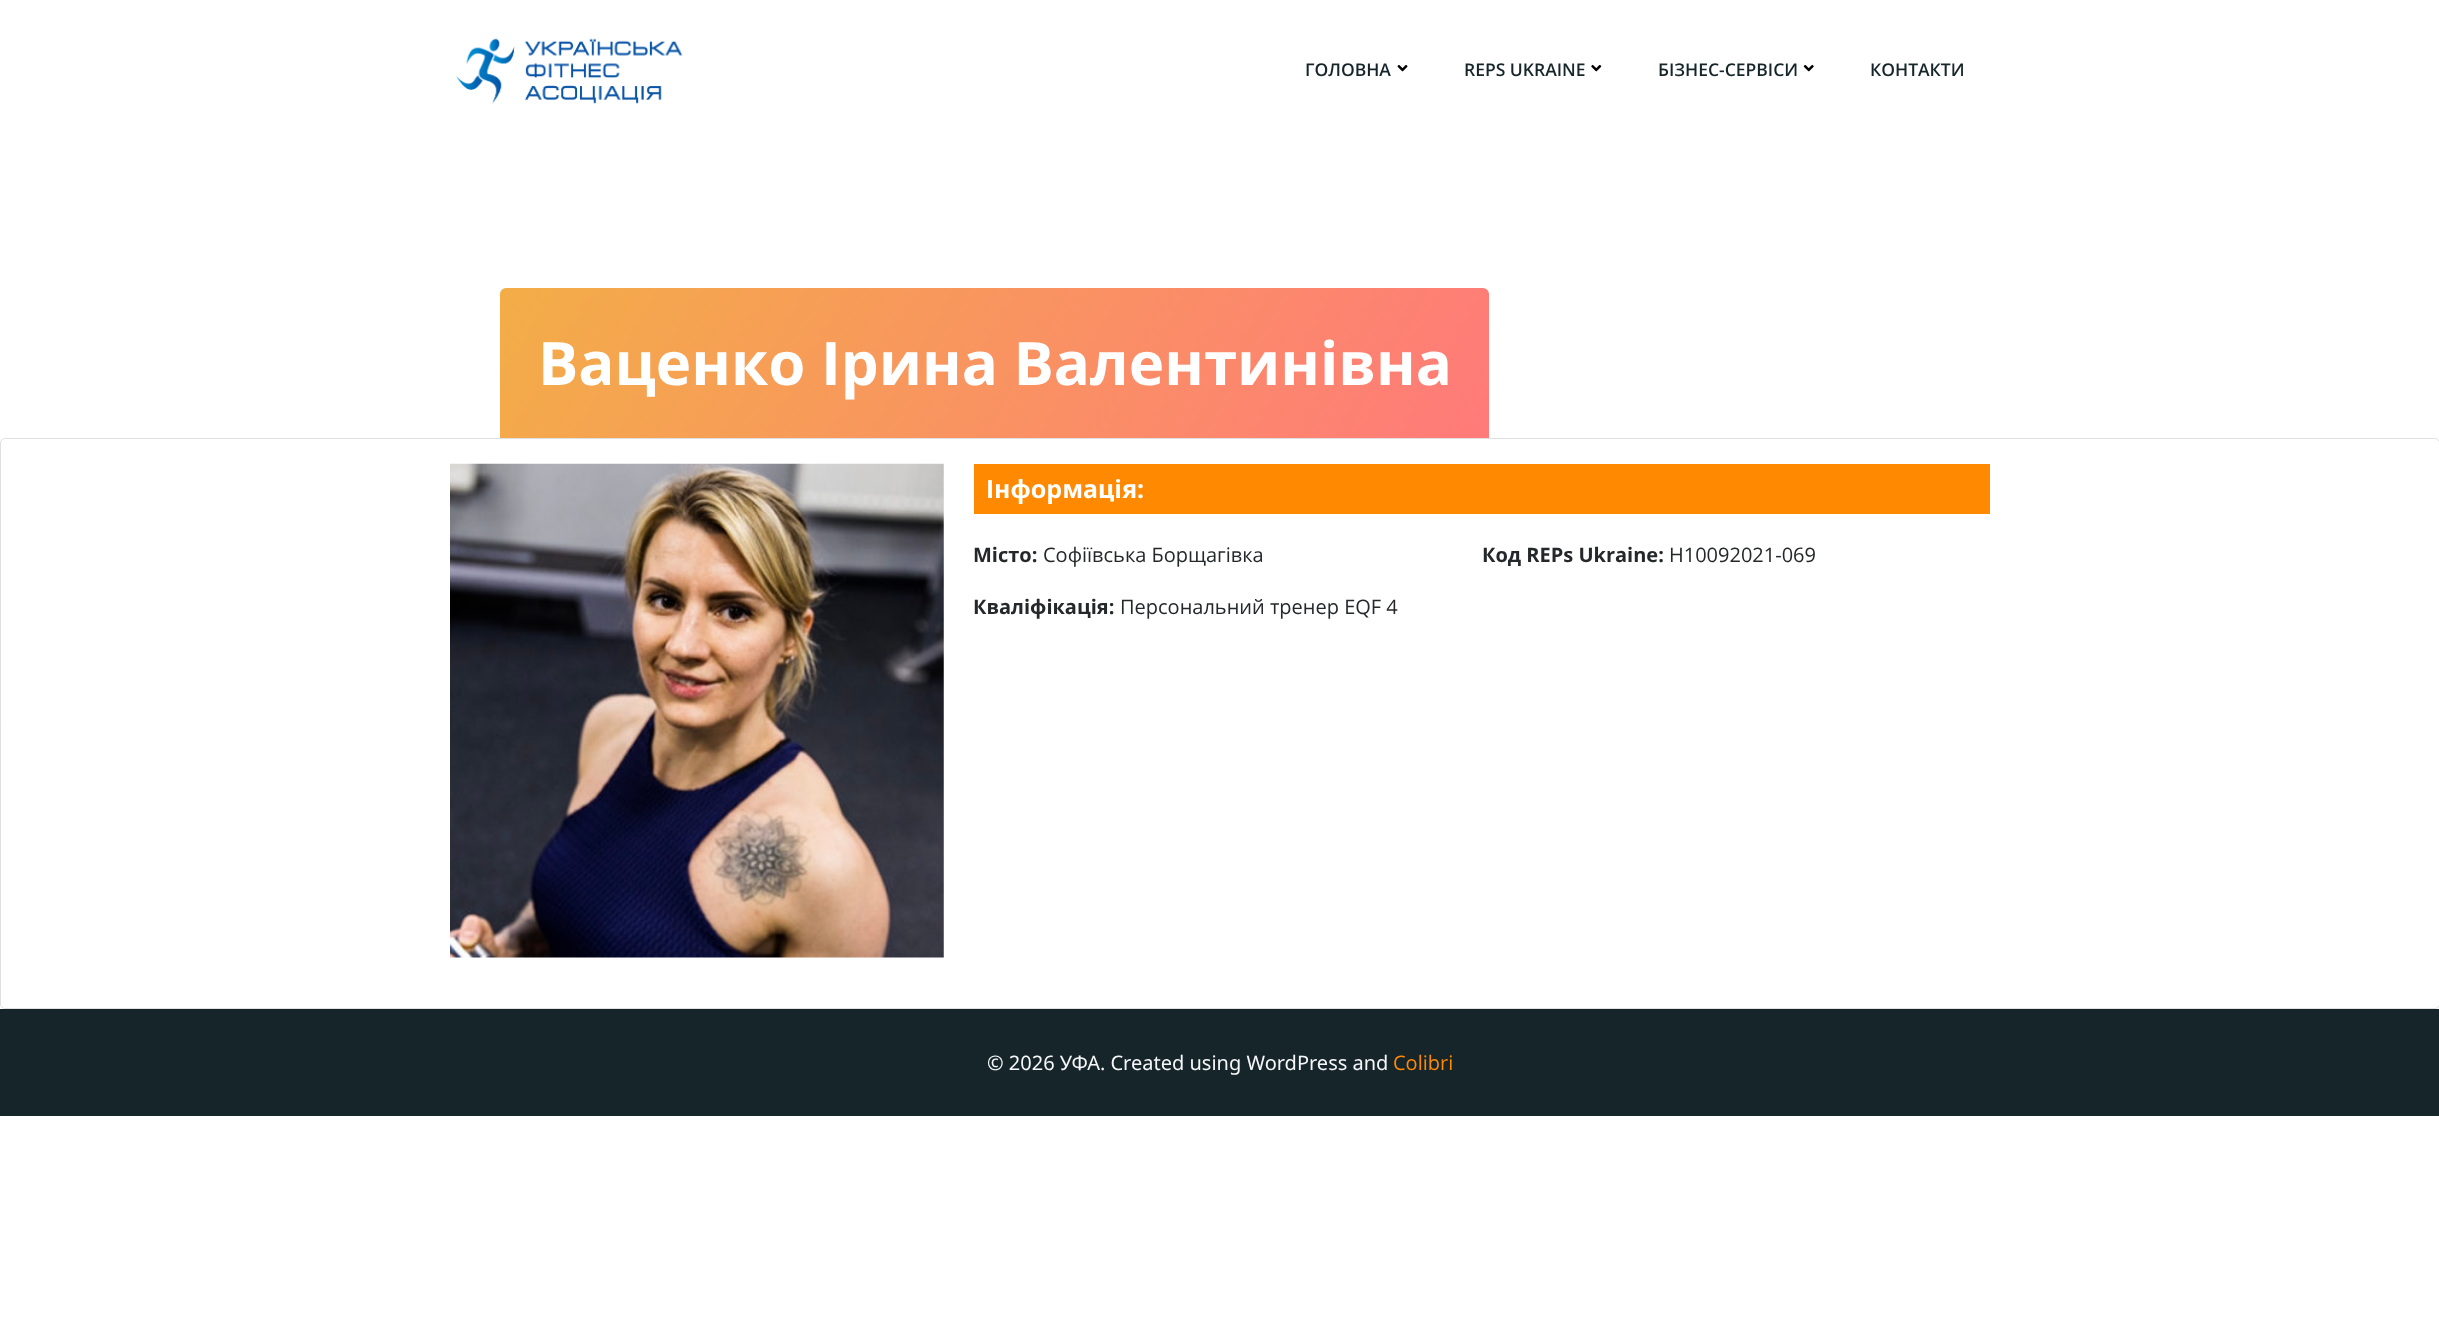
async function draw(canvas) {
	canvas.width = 2439;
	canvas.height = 1336;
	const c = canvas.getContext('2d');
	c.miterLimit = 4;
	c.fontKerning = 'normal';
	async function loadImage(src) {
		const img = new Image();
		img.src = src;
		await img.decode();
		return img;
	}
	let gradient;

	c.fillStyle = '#fff';
	c.fillRect(0, 0, 2439, 1336);
	c.drawImage(await loadImage('img1.png'), 456, 38, 227, 66);
	c.font = '600 17.5px Open Sans';
	c.fillStyle = '#16252a';
	c.fillText('ГОЛОВНА', 1305, 76);
	c.drawImage(await loadImage('img2.png'), 1397, 65, 11, 7);
	c.fillText('REPS UKRAINE', 1464, 76);
	c.drawImage(await loadImage('img3.png'), 1591, 64, 11, 8);
	c.fillText('БІЗНЕС-СЕРВІСИ', 1658, 76);
	c.drawImage(await loadImage('img4.png'), 1803, 64, 11, 8);
	c.fillText('КОНТАКТИ', 1870, 76);
	gradient = c.createLinearGradient(1399, 596, 590, 129);
	gradient.addColorStop(0, '#ff7a7a');
	gradient.addColorStop(1, '#f3ad47');
	c.fillStyle = gradient;
	c.beginPath();
	c.roundRect(500, 288, 989, 150, [6, 6, 0, 0]);
	c.fill();
	c.font = 'bold 60px Open Sans';
	c.fillStyle = '#fff';
	c.fillText('Ваценко Ірина Валентинівна', 538, 385);
	c.beginPath();
	c.roundRect(0.5, 438.5, 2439, 570, 4.5);
	c.strokeStyle = '#dfdfdf';
	c.stroke();
	c.drawImage(await loadImage('img5.png'), 450, 463, 494, 495);
	c.fillStyle = '#ff8900';
	c.fillRect(974, 464, 1016, 50);
	c.font = 'bold 25px Noto Sans';
	c.fillStyle = '#fff';
	c.fillText('Інформація:', 986, 498);
	c.font = 'bold 20px Open Sans';
	c.fillStyle = '#24282a';
	c.fillText('Мiсто:', 973, 562);
	c.font = '20px Open Sans';
	c.fillText('Софіївська Борщагівка', 1043, 562);
	c.font = 'bold 20px Open Sans';
	c.fillText('Код REPs Ukraine:', 1482, 562);
	c.font = '20px Open Sans';
	c.fillText('H10092021-069', 1669, 562);
	c.font = 'bold 20px Open Sans';
	c.fillText('Кваліфікація:', 973, 614);
	c.font = '20px Open Sans';
	c.fillText('Персональний тренер EQF 4', 1120, 614);
	c.fillStyle = '#16252a';
	c.fillRect(0, 1009, 2439, 107);
	c.font = '20px Noto Sans';
	c.fillStyle = '#f6f7f9';
	c.fillText('© 2026 УФА. Created using WordPress and', 987, 1070);
	c.font = '20px Open Sans';
	c.fillStyle = '#ff8900';
	c.fillText('Colibri', 1393, 1070);
}

draw(document.querySelector('canvas'));
